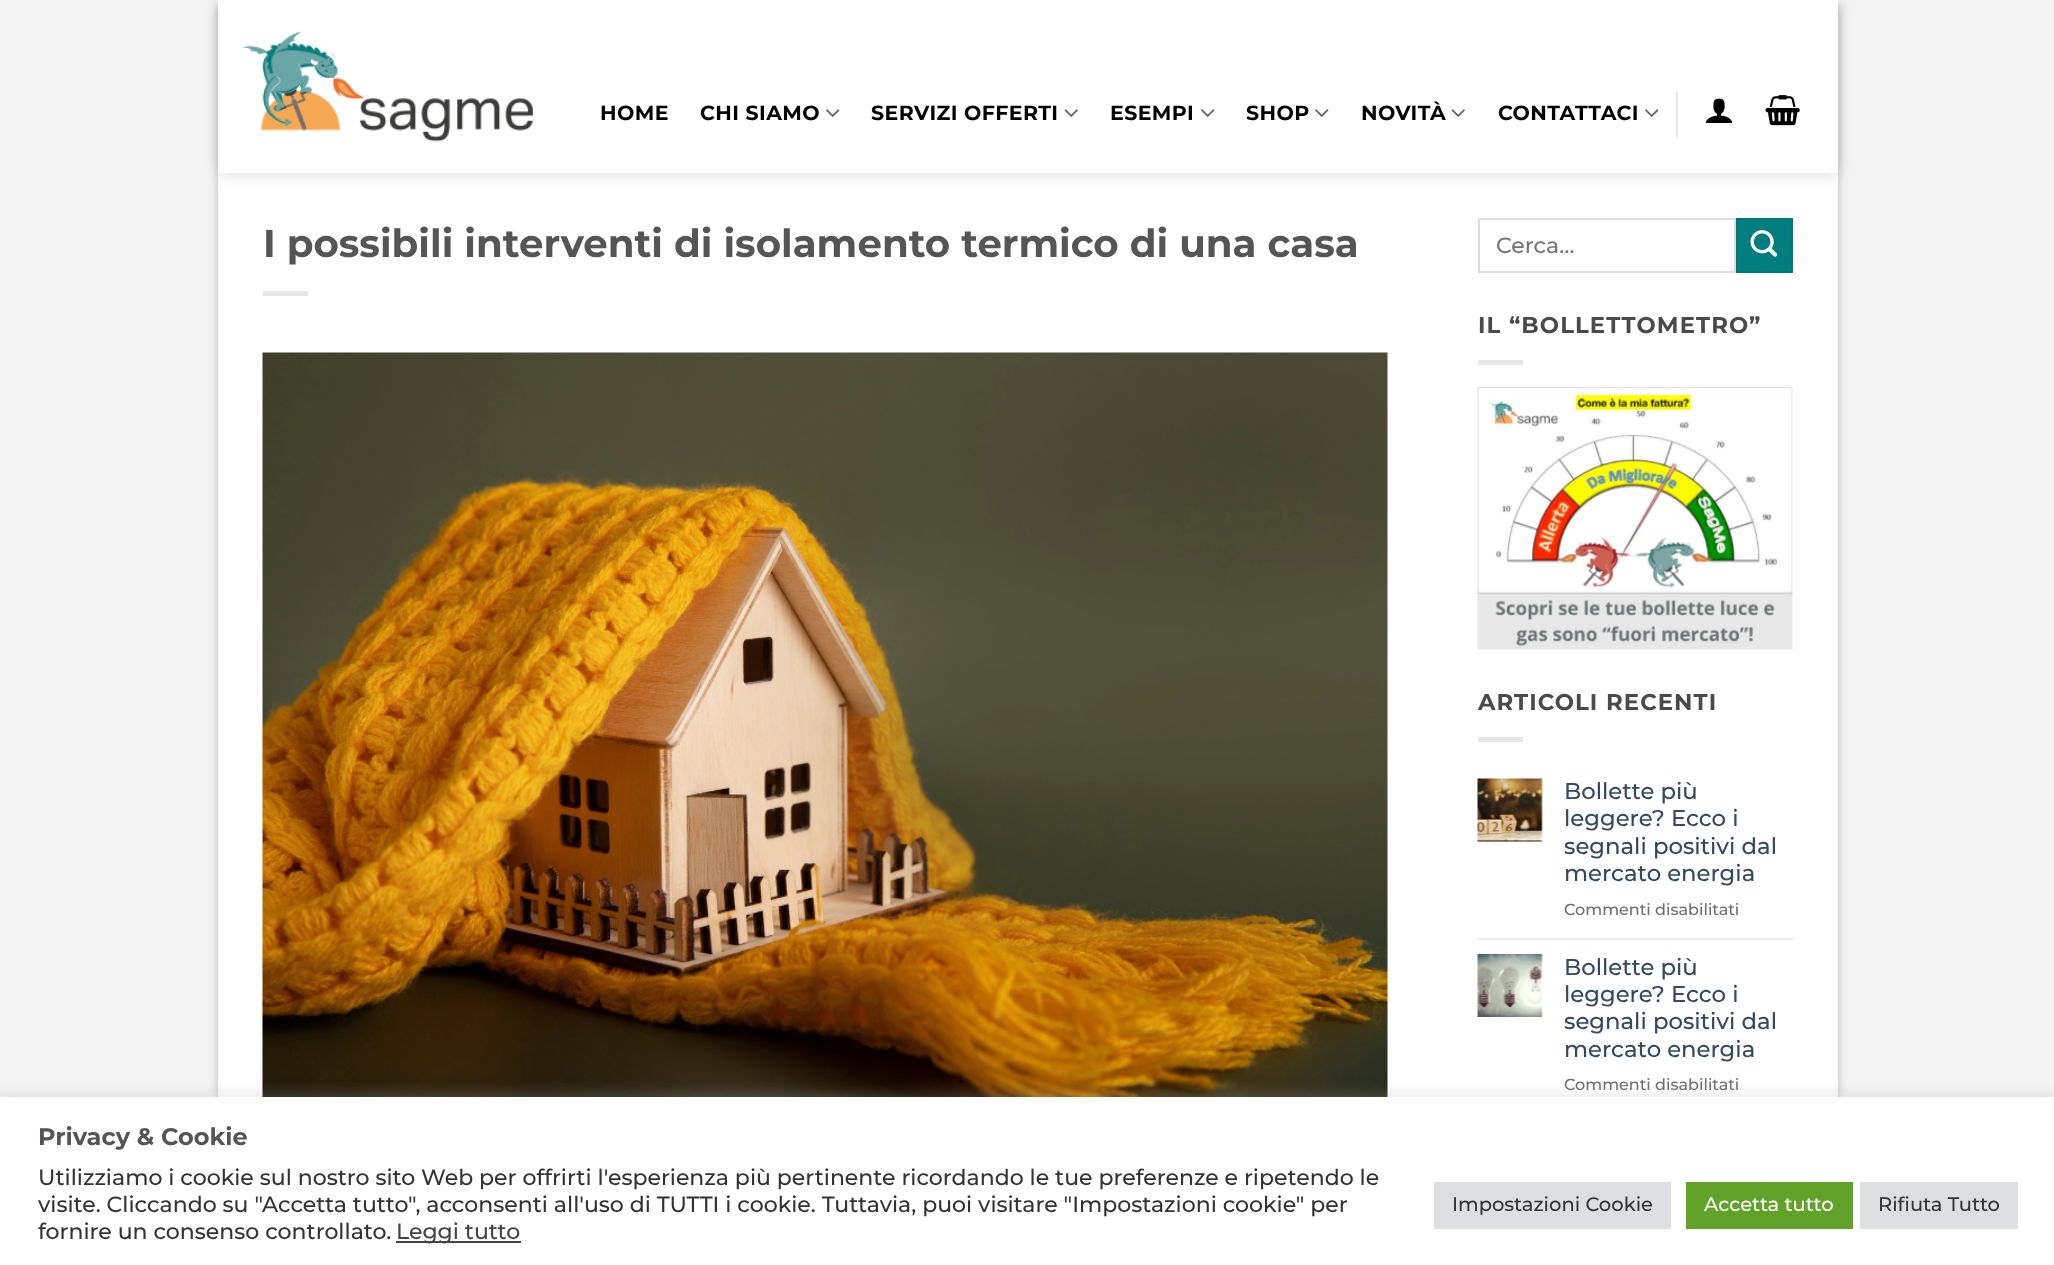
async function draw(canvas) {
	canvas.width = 2054;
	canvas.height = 1265;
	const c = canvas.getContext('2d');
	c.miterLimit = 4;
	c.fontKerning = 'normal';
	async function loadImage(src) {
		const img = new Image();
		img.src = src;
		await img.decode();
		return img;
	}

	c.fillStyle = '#f5f4f4';
	c.fillRect(0, 0, 2054, 1265);
	c.fillStyle = '#0000003b';
	c.filter = 'blur(4.5px)';
	c.beginPath();
	c.rect(218, 5, 1620, 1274);
	c.fill();
	c.filter = 'none';
	c.fillStyle = '#fff';
	c.fillRect(218, 0, 1620, 1097);
	c.save();
	c.beginPath();
	c.moveTo(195, 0);
	c.lineTo(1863, 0);
	c.lineTo(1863, 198);
	c.lineTo(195, 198);
	c.closePath();
	c.moveTo(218, 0);
	c.lineTo(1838, 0);
	c.lineTo(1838, 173);
	c.lineTo(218, 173);
	c.closePath();
	c.clip('evenodd');
	c.fillStyle = '#00000026';
	c.filter = 'blur(7.5px)';
	c.beginPath();
	c.rect(219, 2, 1620, 172);
	c.fill();
	c.filter = 'none';
	c.restore();
	c.fillStyle = '#ffffffe6';
	c.fillRect(218, 0, 1620, 173);
	c.drawImage(await loadImage('img1.png'), 242, 31, 292, 111);
	c.letterSpacing = '0.4px';
	c.font = 'bold 20.5px Montserrat';
	c.fillStyle = '#000';
	c.fillText('HOME', 600, 120);
	c.fillText('CHI SIAMO', 700, 120);
	c.drawImage(await loadImage('img2.png'), 826, 109, 14, 8);
	c.fillText('SERVIZI OFFERTI', 871, 120);
	c.drawImage(await loadImage('img3.png'), 1064, 109, 14, 8);
	c.fillText('ESEMPI', 1110, 120);
	c.drawImage(await loadImage('img2.png'), 1201, 109, 14, 8);
	c.fillText('SHOP', 1246, 120);
	c.drawImage(await loadImage('img2.png'), 1315, 109, 14, 8);
	c.fillText('NOVITÀ', 1361, 120);
	c.drawImage(await loadImage('img3.png'), 1451, 109, 14, 8);
	c.fillText('CONTATTACI', 1498, 120);
	c.drawImage(await loadImage('img2.png'), 1645, 109, 14, 8);
	c.fillStyle = '#e6e6e6';
	c.fillRect(1676, 92, 2, 45);
	c.drawImage(await loadImage('img4.png'), 1705, 98, 28, 25);
	c.drawImage(await loadImage('img5.png'), 1765, 95, 35, 31);
	c.letterSpacing = '0px';
	c.font = 'bold 38.75px Montserrat';
	c.fillStyle = '#555';
	c.fillText('I possibili interventi di isolamento termico di una casa', 263, 257);
	c.fillStyle = '#e6e6e6';
	c.fillRect(263, 291, 45, 5);
	c.drawImage(await loadImage('img6.png'), 262, 352, 1126, 745);
	c.strokeStyle = '#ddd';
	c.lineWidth = 2;
	c.strokeRect(1479, 219, 256, 53);
	c.font = '500 22px Montserrat';
	c.fillStyle = '#757575';
	c.fillText('Cerca…', 1496, 253);
	c.fillStyle = '#007d7e';
	c.beginPath();
	c.rect(1737, 219, 55, 53);
	c.fill();
	c.strokeStyle = '#007778';
	c.stroke();
	c.drawImage(await loadImage('img7.png'), 1750, 230, 27, 27);
	c.letterSpacing = '1.1px';
	c.font = 'bold 22.75px Montserrat';
	c.fillStyle = '#4a4a4a';
	c.fillText('IL “BOLLETTOMETRO”', 1478, 333);
	c.fillStyle = '#e6e6e6';
	c.fillRect(1478, 360, 45, 5);
	c.drawImage(await loadImage('img8.png'), 1477, 387, 316, 263);
	c.fillStyle = '#4a4a4a';
	c.fillText('ARTICOLI RECENTI', 1478, 710);
	c.fillStyle = '#e6e6e6';
	c.fillRect(1478, 737, 45, 5);
	c.drawImage(await loadImage('img9.png'), 1477, 778, 66, 64);
	c.letterSpacing = '0px';
	c.font = '500 22.75px Montserrat';
	c.fillStyle = '#334862';
	for (const [text, x, y] of [
		['Bollette più', 1564, 799],
		['leggere? Ecco i', 1564, 826],
		['segnali positivi dal', 1564, 854],
		['mercato energia', 1564, 881],
	]) {
		c.fillText(text, x, y);
	}
	c.font = '500 16px Montserrat';
	c.fillStyle = '#6e6e6e';
	c.fillText('Commenti disabilitati', 1564, 915);
	c.fillStyle = '#ececec';
	c.fillRect(1478, 938, 315, 2);
	c.drawImage(await loadImage('img10.png'), 1477, 954, 66, 63);
	c.font = '500 22.75px Montserrat';
	c.fillStyle = '#334862';
	for (const [text, x, y] of [
		['Bollette più', 1564, 975],
		['leggere? Ecco i', 1564, 1002],
		['segnali positivi dal', 1564, 1029],
		['mercato energia', 1564, 1057],
	]) {
		c.fillText(text, x, y);
	}
	c.font = '500 16px Montserrat';
	c.fillStyle = '#6e6e6e';
	c.fillText('Commenti disabilitati', 1564, 1090);
	c.fillStyle = '#acabab4d';
	c.filter = 'blur(7.5px)';
	c.beginPath();
	c.rect(0, 1095, 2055, 170);
	c.fill();
	c.filter = 'none';
	c.fillStyle = '#fff';
	c.fillRect(0, 1097, 2054, 168);
	c.font = 'bold 24px Montserrat';
	c.fillStyle = '#555';
	c.fillText('Privacy & Cookie', 38, 1145);
	c.font = '500 22px Montserrat';
	c.fillStyle = '#333';
	for (const [text, x, y] of [
		['Utilizziamo i cookie sul nostro sito Web per offrirti l\'esperienza più pertinente ricordando le tue preferenze e ripetendo le', 38, 1185],
		['visite. Cliccando su "Accetta tutto", acconsenti all\'uso di TUTTI i cookie. Tuttavia, puoi visitare "Impostazioni cookie" per', 38, 1212],
		['fornire un consenso controllato.', 38, 1239],
	]) {
		c.fillText(text, x, y);
	}
	c.fillStyle = '#444';
	c.fillRect(396, 1241, 125, 2);
	c.fillText('Leggi tutto', 396, 1239);
	c.fillStyle = '#dedfe0';
	c.fillRect(1434, 1182, 237, 47);
	c.font = '500 19.5px Montserrat';
	c.fillStyle = '#333';
	c.fillText('Impostazioni Cookie', 1452, 1211);
	c.fillStyle = '#61a229';
	c.fillRect(1686, 1182, 167, 47);
	c.fillStyle = '#fff';
	c.fillText('Accetta tutto', 1704, 1211);
	c.fillStyle = '#dedfe0';
	c.fillRect(1860, 1182, 158, 47);
	c.fillStyle = '#333';
	c.fillText('Rifiuta Tutto', 1878, 1211);
}

draw(document.querySelector('canvas'));
